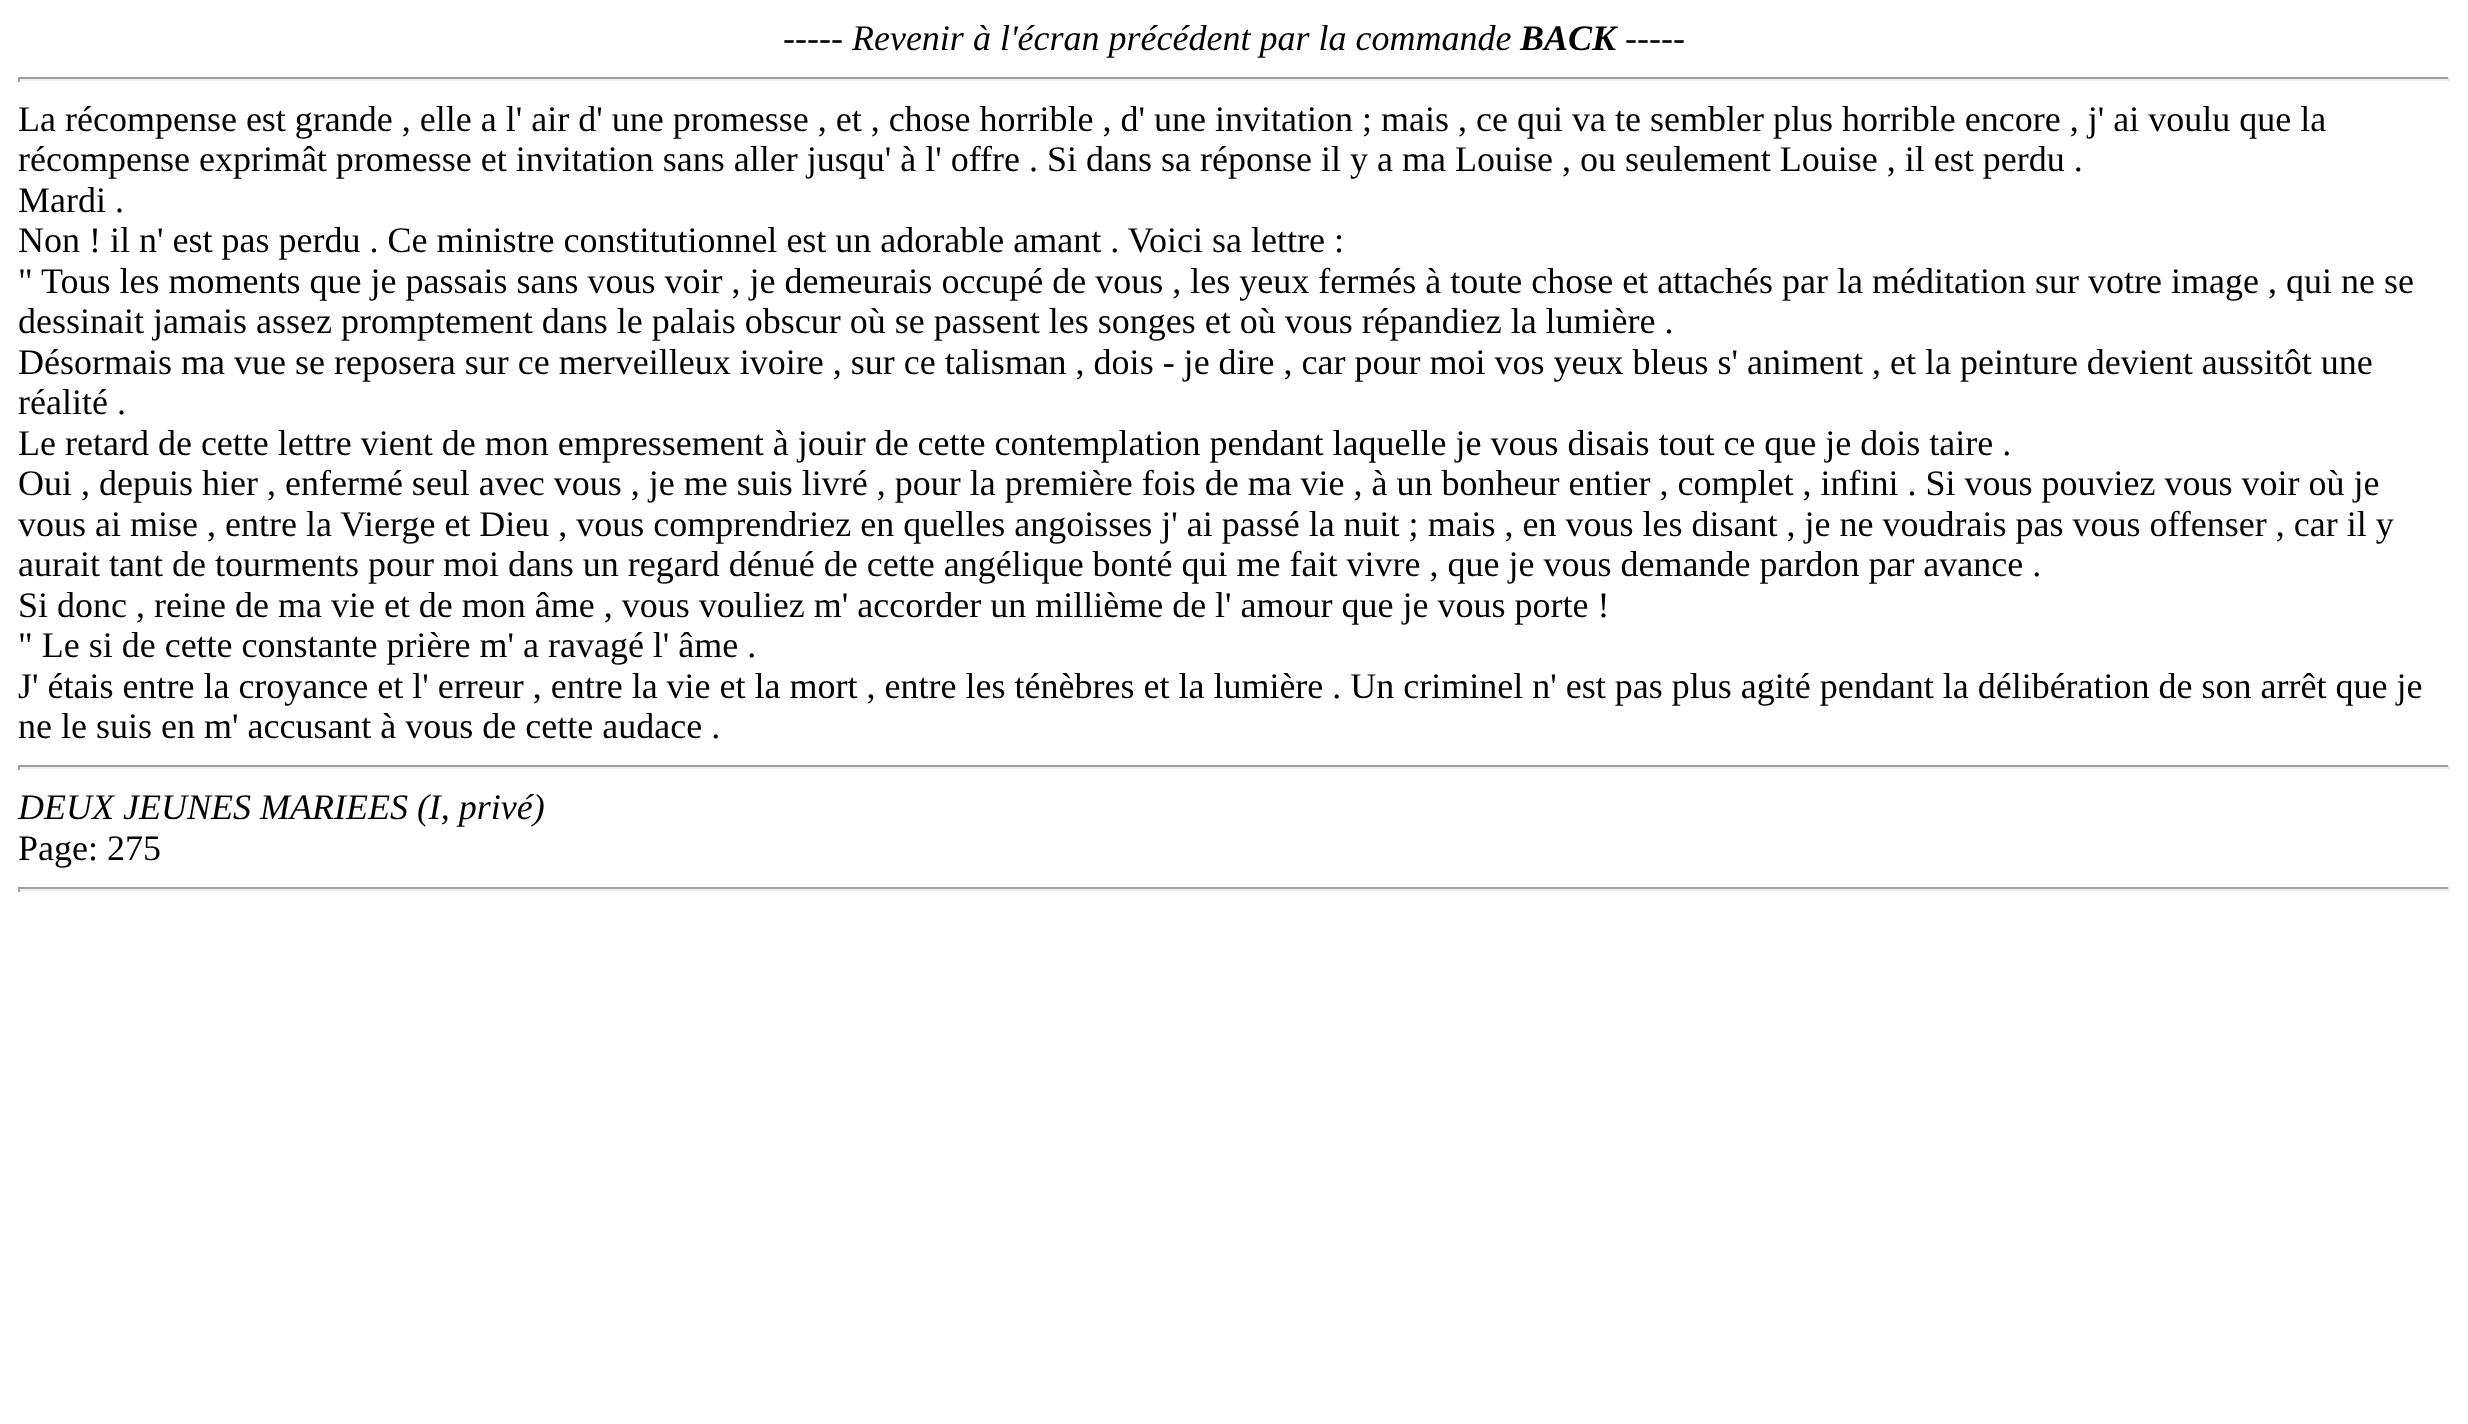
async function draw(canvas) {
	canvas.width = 2468;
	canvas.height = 1424;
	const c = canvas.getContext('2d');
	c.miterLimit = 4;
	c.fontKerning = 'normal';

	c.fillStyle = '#fff';
	c.fillRect(0, 0, 2468, 1424);
	c.font = 'italic 36px Liberation Serif';
	c.fillStyle = '#000';
	c.fillText('----- Revenir à l\'écran précédent par la commande', 783, 50);
	c.font = 'italic bold 36px Liberation Serif';
	c.fillText('BACK', 1520, 50);
	c.font = 'italic 36px Liberation Serif';
	c.fillText('-----', 1625, 50);
	for (const [x, y, w, h, color] of [
		[18, 77, 2432, 2, '#9f9f9f'],
		[2448, 77, 2, 5, '#eee'],
		[18, 79, 2432, 2, '#eee'],
		[18, 77, 2, 5, '#9f9f9f'],
	]) {
		c.fillStyle = color;
		c.fillRect(x, y, w, h);
	}
	c.font = '36px Liberation Serif';
	c.fillStyle = '#000';
	for (const [text, x, y] of [
		['La récompense est grande , elle a l\' air d\' une promesse , et , chose horrible , d\' une invitation ; mais , ce qui va te sembler plus horrible encore , j\' ai voulu que la', 18, 131],
		['récompense exprimât promesse et invitation sans aller jusqu\' à l\' offre . Si dans sa réponse il y a ma Louise , ou seulement Louise , il est perdu .', 18, 171],
		['Mardi .', 18, 212],
		['Non ! il n\' est pas perdu . Ce ministre constitutionnel est un adorable amant . Voici sa lettre :', 18, 252],
		['" Tous les moments que je passais sans vous voir , je demeurais occupé de vous , les yeux fermés à toute chose et attachés par la méditation sur votre image , qui ne se', 18, 293],
		['dessinait jamais assez promptement dans le palais obscur où se passent les songes et où vous répandiez la lumière .', 18, 333],
		['Désormais ma vue se reposera sur ce merveilleux ivoire , sur ce talisman , dois - je dire , car pour moi vos yeux bleus s\' animent , et la peinture devient aussitôt une', 18, 374],
		['réalité .', 18, 414],
		['Le retard de cette lettre vient de mon empressement à jouir de cette contemplation pendant laquelle je vous disais tout ce que je dois taire .', 18, 455],
		['Oui , depuis hier , enfermé seul avec vous , je me suis livré , pour la première fois de ma vie , à un bonheur entier , complet , infini . Si vous pouviez vous voir où je', 18, 495],
		['vous ai mise , entre la Vierge et Dieu , vous comprendriez en quelles angoisses j\' ai passé la nuit ; mais , en vous les disant , je ne voudrais pas vous offenser , car il y', 18, 536],
		['aurait tant de tourments pour moi dans un regard dénué de cette angélique bonté qui me fait vivre , que je vous demande pardon par avance .', 18, 576],
		['Si donc , reine de ma vie et de mon âme , vous vouliez m\' accorder un millième de l\' amour que je vous porte !', 18, 617],
		['" Le si de cette constante prière m\' a ravagé l\' âme .', 18, 657],
		['J\' étais entre la croyance et l\' erreur , entre la vie et la mort , entre les ténèbres et la lumière . Un criminel n\' est pas plus agité pendant la délibération de son arrêt que je', 18, 698],
		['ne le suis en m\' accusant à vous de cette audace .', 18, 738],
	]) {
		c.fillText(text, x, y);
	}
	for (const [x, y, w, h, color] of [
		[18, 765, 2432, 2, '#9f9f9f'],
		[2448, 765, 2, 5, '#eee'],
		[18, 767, 2432, 2, '#eee'],
		[18, 765, 2, 5, '#9f9f9f'],
	]) {
		c.fillStyle = color;
		c.fillRect(x, y, w, h);
	}
	c.font = 'italic 36px Liberation Serif';
	c.fillStyle = '#000';
	c.fillText('DEUX JEUNES MARIEES (I, privé)', 18, 819);
	c.font = '36px Liberation Serif';
	c.fillText('Page: 275', 18, 860);
	for (const [x, y, w, h, color] of [
		[18, 887, 2432, 2, '#9f9f9f'],
		[2448, 887, 2, 5, '#eee'],
		[18, 889, 2432, 2, '#eee'],
		[18, 887, 2, 5, '#9f9f9f'],
	]) {
		c.fillStyle = color;
		c.fillRect(x, y, w, h);
	}
}

draw(document.querySelector('canvas'));
